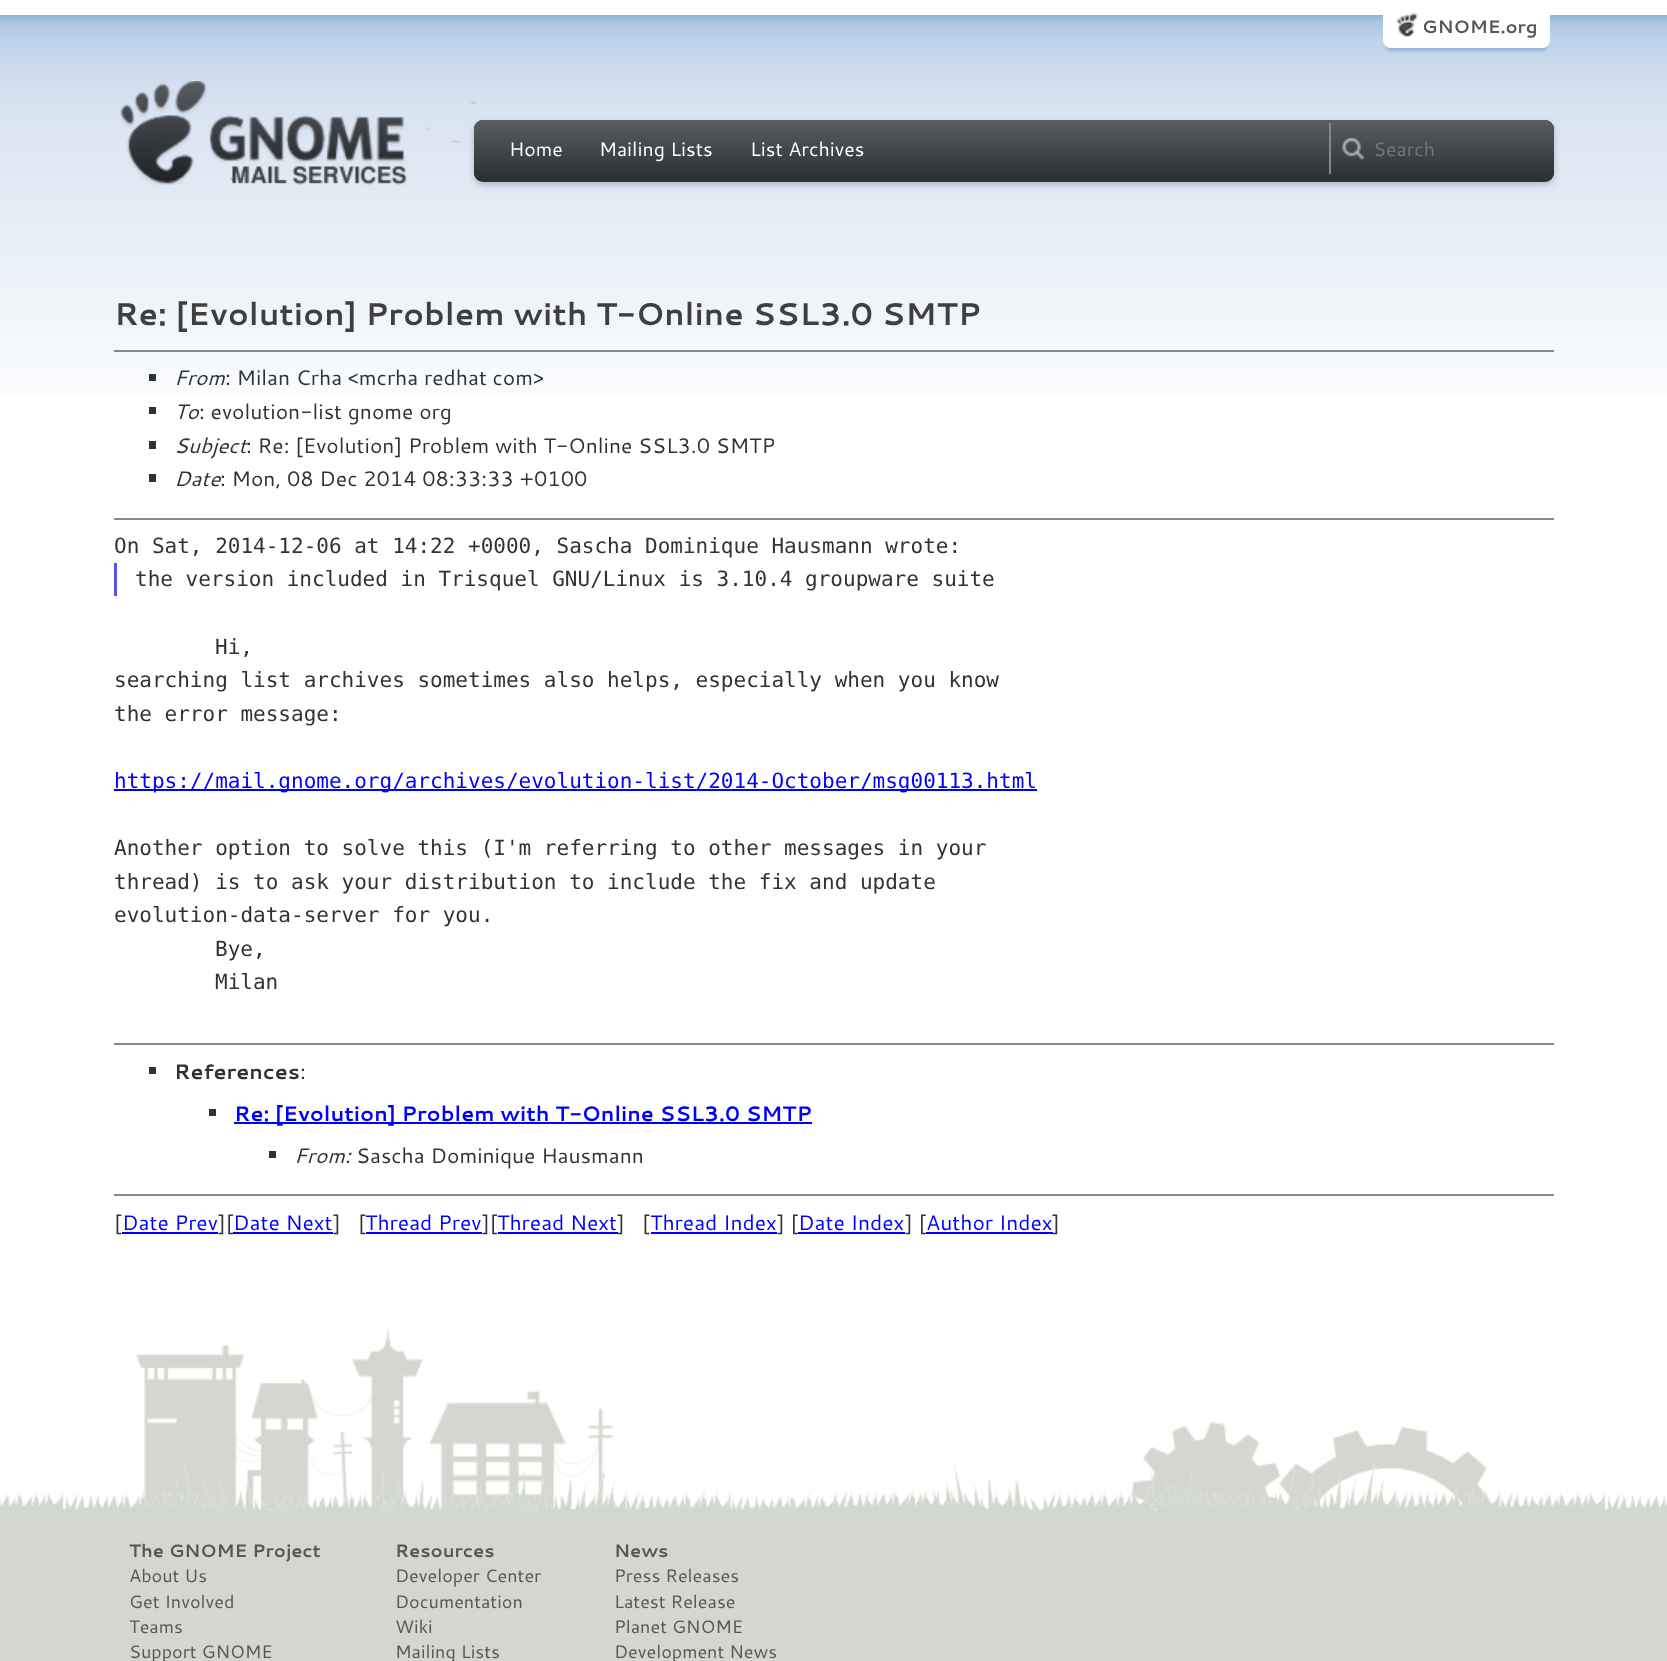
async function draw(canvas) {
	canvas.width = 1667;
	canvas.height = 1661;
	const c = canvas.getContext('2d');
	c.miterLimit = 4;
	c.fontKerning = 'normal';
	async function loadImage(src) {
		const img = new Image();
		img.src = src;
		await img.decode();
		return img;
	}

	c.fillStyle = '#fff';
	c.fillRect(0, 0, 1667, 1661);
	c.drawImage(await loadImage('img1.png'), 0, 15, 1667, 379);
	c.fillStyle = '#8fb3d9';
	c.filter = 'blur(1.5px)';
	c.beginPath();
	c.roundRect(1386, 15, 161, 36, 5);
	c.fill();
	c.filter = 'none';
	c.fillStyle = '#fff';
	c.beginPath();
	c.roundRect(1383, 6, 167, 42, 8);
	c.fill();
	c.drawImage(await loadImage('img2.png'), 1396, 13, 22, 24);
	c.font = 'bold 18px Cantarell';
	c.fillStyle = '#555753';
	c.fillText('GNOME.org', 1422, 33);
	c.drawImage(await loadImage('img3.png'), 119, 81, 358, 104);
	c.fillStyle = '#00000033';
	c.filter = 'blur(3px)';
	c.beginPath();
	c.roundRect(474, 123, 1080, 62, 9);
	c.fill();
	c.filter = 'none';
	c.fillStyle = '#2e3436';
	c.beginPath();
	c.roundRect(474, 120, 1080, 62, 9);
	c.fill();
	c.drawImage(await loadImage('img4.png'), 474, 120, 1080, 60);
	c.font = '19.5px Cantarell';
	c.fillStyle = '#fff';
	for (const [text, x, y] of [
		['Home', 509, 156],
		['Mailing Lists', 599, 156],
		['List Archives', 750, 156],
	]) {
		c.fillText(text, x, y);
	}
	c.drawImage(await loadImage('img5.png'), 1342, 138, 23, 22);
	c.fillStyle = '#888';
	c.fillRect(1329, 123, 2, 51);
	c.fillStyle = '#757575';
	c.fillText('Search', 1373, 156);
	c.font = 'bold 31.5px Cantarell';
	c.fillStyle = '#3f3f3f';
	c.fillText('Re: [Evolution] Problem with T-Online SSL3.0 SMTP', 114, 325);
	c.fillStyle = '#888';
	c.fillRect(114, 350, 1440, 2);
	c.fillStyle = '#2e3436';
	c.fillRect(149, 374, 7, 7);
	c.font = 'italic 21px Cantarell';
	c.fillText('From', 174, 385);
	c.font = '21px Cantarell';
	c.fillText(': Milan Crha <mcrha redhat com>', 225, 385);
	c.fillRect(149, 407, 7, 7);
	c.font = 'italic 21px Cantarell';
	c.fillText('To', 174, 419);
	c.font = '21px Cantarell';
	c.fillText(': evolution-list gnome org', 199, 419);
	c.fillRect(149, 441, 7, 8);
	c.font = 'italic 21px Cantarell';
	c.fillText('Subject', 174, 453);
	c.font = '21px Cantarell';
	c.fillText(': Re: [Evolution] Problem with T-Online SSL3.0 SMTP', 246, 453);
	c.fillRect(149, 474, 7, 8);
	c.font = 'italic 21px Cantarell';
	c.fillText('Date', 174, 486);
	c.font = '21px Cantarell';
	c.fillText(': Mon, 08 Dec 2014 08:33:33 +0100', 220, 486);
	c.fillStyle = '#888';
	c.fillRect(114, 518, 1440, 2);
	c.font = '21px DejaVu Sans Mono';
	c.fillStyle = '#2e3436';
	c.fillText('On Sat, 2014-12-06 at 14:22 +0000, Sascha Dominique Hausmann wrote:', 114, 553);
	c.fillStyle = '#55e';
	c.fillRect(114, 563, 3, 33);
	c.fillStyle = '#2e3436';
	for (const [text, x, y] of [
		['the version included in Trisquel GNU/Linux is 3.10.4 groupware suite', 135, 586],
		['Hi,', 215, 654],
		['searching list archives sometimes also helps, especially when you know', 114, 687],
		['the error message:', 114, 721],
	]) {
		c.fillText(text, x, y);
	}
	c.fillStyle = '#00f';
	c.fillRect(114, 789, 923, 2);
	c.fillText('https://mail.gnome.org/archives/evolution-list/2014-October/msg00113.html', 114, 788);
	c.fillStyle = '#2e3436';
	for (const [text, x, y] of [
		['Another option to solve this (I\'m referring to other messages in your', 114, 855],
		['thread) is to ask your distribution to include the fix and update', 114, 889],
		['evolution-data-server for you.', 114, 922],
		['Bye,', 215, 956],
		['Milan', 215, 989],
	]) {
		c.fillText(text, x, y);
	}
	c.fillStyle = '#888';
	c.fillRect(114, 1043, 1440, 2);
	c.fillStyle = '#2e3436';
	c.fillRect(149, 1067, 7, 7);
	c.font = 'bold 21px Cantarell';
	c.fillText('References', 174, 1079);
	c.font = '21px Cantarell';
	c.fillText(':', 300, 1079);
	c.fillRect(209, 1109, 7, 7);
	c.fillStyle = '#00f';
	c.fillRect(234, 1122, 578, 2);
	c.font = 'bold 21px Cantarell';
	c.fillText('Re: [Evolution] Problem with T-Online SSL3.0 SMTP', 234, 1121);
	c.fillStyle = '#2e3436';
	c.fillRect(269, 1151, 7, 7);
	c.font = 'italic 21px Cantarell';
	c.fillText('From:', 294, 1163);
	c.font = '21px Cantarell';
	c.fillText('Sascha Dominique Hausmann', 356, 1163);
	c.fillStyle = '#888';
	c.fillRect(114, 1194, 1440, 2);
	c.fillStyle = '#2e3436';
	c.fillText('[', 114, 1230);
	c.fillStyle = '#00f';
	c.fillText('Date Prev', 122, 1230);
	c.fillRect(122, 1232, 96, 2);
	c.fillStyle = '#2e3436';
	c.fillText('][', 218, 1230);
	c.fillStyle = '#00f';
	c.fillText('Date Next', 233, 1230);
	c.fillRect(233, 1232, 100, 2);
	c.fillStyle = '#2e3436';
	c.fillText(']   [', 333, 1230);
	c.fillStyle = '#00f';
	c.fillText('Thread Prev', 365, 1230);
	c.fillRect(366, 1232, 116, 2);
	c.fillStyle = '#2e3436';
	c.fillText('][', 482, 1230);
	c.fillStyle = '#00f';
	c.fillText('Thread Next', 497, 1230);
	c.fillRect(498, 1232, 120, 2);
	c.fillStyle = '#2e3436';
	c.fillText(']', 617, 1230);
	c.fillText('[', 642, 1230);
	c.fillStyle = '#00f';
	c.fillText('Thread Index', 650, 1230);
	c.fillRect(651, 1232, 126, 2);
	c.fillStyle = '#2e3436';
	c.fillText('] [', 777, 1230);
	c.fillStyle = '#00f';
	c.fillText('Date Index', 798, 1230);
	c.fillRect(798, 1232, 107, 2);
	c.fillStyle = '#2e3436';
	c.fillText('] [', 905, 1230);
	c.fillStyle = '#00f';
	c.fillText('Author Index', 926, 1230);
	c.fillRect(926, 1232, 127, 2);
	c.fillStyle = '#2e3436';
	c.fillText(']', 1052, 1230);
	c.drawImage(await loadImage('img6.png'), 136, 1327, 1378, 182);
	c.drawImage(await loadImage('img7.png'), 0, 1461, 1667, 57);
	c.fillStyle = '#d3d7cf';
	c.fillRect(0, 1518, 1667, 143);
	c.font = 'bold 18px Cantarell';
	c.fillStyle = '#555753';
	c.fillText('The GNOME Project', 129, 1557);
	c.font = '18px Cantarell';
	for (const [text, x, y] of [
		['About Us', 129, 1582],
		['Get Involved', 129, 1608],
		['Teams', 129, 1633],
		['Support GNOME', 129, 1658],
	]) {
		c.fillText(text, x, y);
	}
	c.font = 'bold 18px Cantarell';
	c.fillText('Resources', 395, 1557);
	c.font = '18px Cantarell';
	for (const [text, x, y] of [
		['Developer Center', 395, 1582],
		['Documentation', 395, 1608],
		['Wiki', 395, 1633],
		['Mailing Lists', 395, 1658],
	]) {
		c.fillText(text, x, y);
	}
	c.font = 'bold 18px Cantarell';
	c.fillText('News', 614, 1557);
	c.font = '18px Cantarell';
	for (const [text, x, y] of [
		['Press Releases', 614, 1582],
		['Latest Release', 614, 1608],
		['Planet GNOME', 614, 1633],
		['Development News', 614, 1658],
	]) {
		c.fillText(text, x, y);
	}
}

draw(document.querySelector('canvas'));
